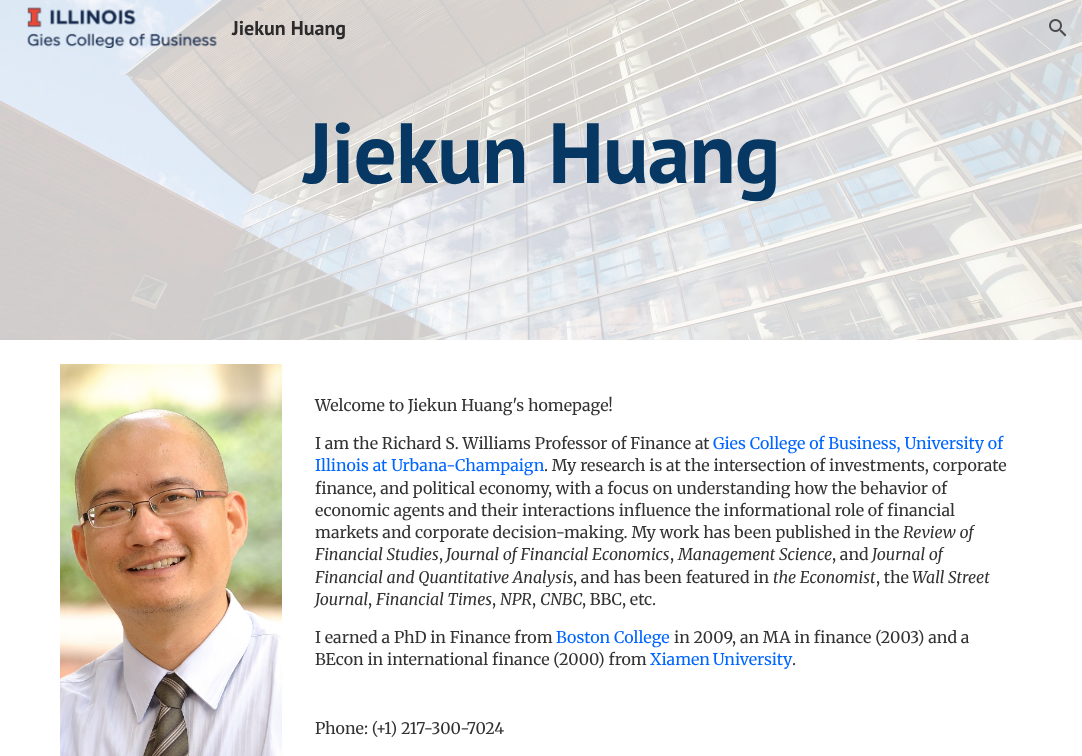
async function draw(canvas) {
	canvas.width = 1082;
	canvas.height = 756;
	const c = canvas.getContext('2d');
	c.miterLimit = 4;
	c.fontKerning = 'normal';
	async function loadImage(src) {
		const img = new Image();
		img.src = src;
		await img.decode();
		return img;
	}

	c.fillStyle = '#fff';
	c.fillRect(0, 0, 1082, 756);
	c.drawImage(await loadImage('img3.png'), 0, 0, 1082, 340);
	c.drawImage(await loadImage('img1.png'), 27, 7, 190, 41);
	c.font = 'bold 20px PT Sans';
	c.fillStyle = '#2c2a2a';
	c.fillText('Jiekun Huang', 232, 35);
	c.drawImage(await loadImage('img2.png'), 1049, 19, 18, 18);
	c.letterSpacing = '-1px';
	c.font = 'bold 85.5px PT Sans';
	c.fillStyle = '#073763';
	c.fillText('Jiekun Huang', 304, 183);
	c.drawImage(await loadImage('img4.png'), 60, 364, 222, 392);
	c.letterSpacing = '0px';
	c.font = '16px Merriweather';
	c.fillStyle = '#333';
	c.fillText('Welcome to Jiekun Huang\'s homepage!', 315, 411);
	c.fillText('I am the Richard S. Williams Professor of Finance at', 315, 449);
	c.fillStyle = '#06f';
	c.fillText('Gies College of Business, University of', 713, 449);
	c.fillText('Illinois at Urbana-Champaign', 315, 471);
	c.fillStyle = '#333';
	for (const [text, x, y] of [
		['. My research is at the intersection of investments, corporate', 544, 471],
		['finance, and political economy, with a focus on understanding how the behavior of', 315, 494],
		['economic agents and their interactions influence the informational role of financial', 315, 516],
		['markets and corporate decision-making. My work has been published in the', 315, 538],
	]) {
		c.fillText(text, x, y);
	}
	c.font = 'italic 16px Merriweather';
	c.fillText('Review of', 903, 538);
	c.fillText('Financial Studies', 315, 560);
	c.font = '16px Merriweather';
	c.fillText(',', 439, 560);
	c.font = 'italic 16px Merriweather';
	c.fillText('Journal of Financial Economics', 446, 560);
	c.font = '16px Merriweather';
	c.fillText(',', 670, 560);
	c.font = 'italic 16px Merriweather';
	c.fillText('Management Science', 678, 560);
	c.font = '16px Merriweather';
	c.fillText(', and', 832, 560);
	c.font = 'italic 16px Merriweather';
	c.fillText('Journal of', 872, 560);
	c.fillText('Financial and Quantitative Analysis', 315, 583);
	c.font = '16px Merriweather';
	c.fillText(', and has been featured in', 573, 583);
	c.font = 'italic 16px Merriweather';
	c.fillText('the Economist', 773, 583);
	c.font = '16px Merriweather';
	c.fillText(', the', 876, 583);
	c.font = 'italic 16px Merriweather';
	c.fillText('Wall Street', 912, 583);
	c.fillText('Journal', 315, 605);
	c.font = '16px Merriweather';
	c.fillText(',', 368, 605);
	c.font = 'italic 16px Merriweather';
	c.fillText('Financial Times', 376, 605);
	c.font = '16px Merriweather';
	c.fillText(',', 492, 605);
	c.font = 'italic 16px Merriweather';
	c.fillText('NPR', 500, 605);
	c.font = '16px Merriweather';
	c.fillText(',', 532, 605);
	c.font = 'italic 16px Merriweather';
	c.fillText('CNBC', 540, 605);
	c.font = '16px Merriweather';
	c.fillText(', BBC, etc.', 582, 605);
	c.fillText('I earned a PhD in Finance from', 315, 643);
	c.fillStyle = '#06f';
	c.fillText('Boston College', 556, 643);
	c.fillStyle = '#333';
	c.fillText('in 2009, an MA in finance (2003) and a', 674, 643);
	c.fillText('BEcon in international finance (2000) from', 315, 665);
	c.wordSpacing = '-1px';
	c.fillStyle = '#06f';
	c.fillText('Xiamen University', 650, 665);
	c.wordSpacing = '0px';
	c.fillStyle = '#333';
	c.fillText('.', 792, 665);
	c.fillText('Phone: (+1) 217-300-7024', 315, 734);
}

draw(document.querySelector('canvas'));
